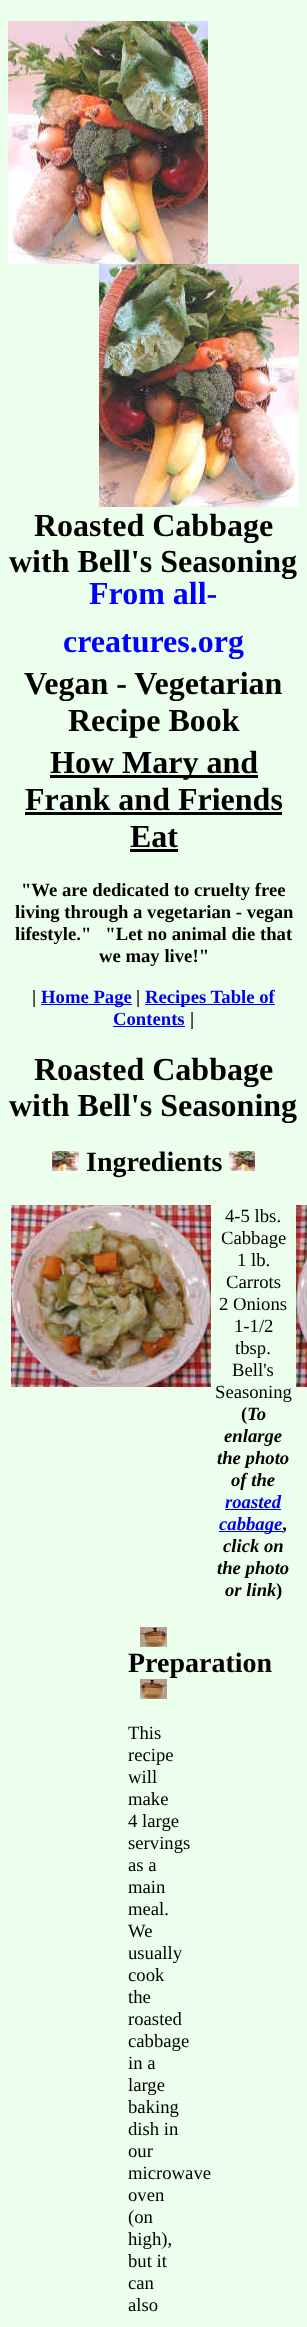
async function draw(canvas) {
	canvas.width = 307;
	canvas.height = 2327;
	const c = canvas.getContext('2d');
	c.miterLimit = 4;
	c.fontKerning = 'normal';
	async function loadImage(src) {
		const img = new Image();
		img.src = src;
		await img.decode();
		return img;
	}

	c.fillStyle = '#ecffec';
	c.fillRect(0, 0, 307, 2327);
	c.drawImage(await loadImage('img1.png'), 8, 21, 200, 243);
	c.drawImage(await loadImage('img2.png'), 99, 264, 200, 243);
	c.font = 'bold 32px Liberation Serif';
	c.fillStyle = '#000';
	c.fillText('Roasted Cabbage', 34, 536);
	c.fillText('with Bell\'s Seasoning', 9, 572);
	c.fillStyle = '#00f';
	c.fillText('From all-', 89, 604);
	c.fillText('creatures.org', 63, 652);
	c.fillStyle = '#000';
	c.fillText('Vegan - Vegetarian', 24, 694);
	c.fillText('Recipe Book', 68, 731);
	c.fillRect(50, 775, 208, 3);
	c.fillText('How Mary and', 50, 773);
	c.fillText('Frank and Friends', 25, 810);
	c.fillRect(25, 812, 257, 3);
	c.fillText('Eat', 130, 847);
	c.fillRect(130, 849, 48, 3);
	c.font = 'bold 18.7px Liberation Serif';
	for (const [text, x, y] of [
		['"We are dedicated to cruelty free', 21, 896],
		['living through a vegetarian - vegan', 15, 918],
		['lifestyle."   "Let no animal die that', 15, 940],
		['we may live!"', 99, 962],
		['|', 32, 1003],
	]) {
		c.fillText(text, x, y);
	}
	c.fillStyle = '#00e';
	c.fillRect(41, 1004, 91, 1);
	c.fillText('Home Page', 41, 1003);
	c.fillStyle = '#000';
	c.fillText('|', 136, 1003);
	c.fillStyle = '#00e';
	c.fillRect(145, 1004, 130, 1);
	c.fillText('Recipes Table of', 145, 1003);
	c.fillText('Contents', 113, 1025);
	c.fillRect(113, 1026, 72, 1);
	c.fillStyle = '#000';
	c.fillText('|', 190, 1025);
	c.font = 'bold 32px Liberation Serif';
	c.fillText('Roasted Cabbage', 34, 1080);
	c.fillText('with Bell\'s Seasoning', 9, 1116);
	c.drawImage(await loadImage('img3.png'), 52, 1151, 27, 20);
	c.font = 'bold 28px Liberation Serif';
	c.fillText('Ingredients', 86, 1171);
	c.drawImage(await loadImage('img4.png'), 229, 1151, 26, 20);
	c.drawImage(await loadImage('img5.png'), 11, 1205, 200, 182);
	c.font = '18.7px Liberation Serif';
	for (const [text, x, y] of [
		['4-5 lbs.', 225, 1222],
		['Cabbage', 221, 1244],
		['1 lb.', 237, 1266],
		['Carrots', 226, 1288],
		['2 Onions', 219, 1310],
		['1-1/2', 234, 1332],
		['tbsp.', 235, 1354],
		['Bell\'s', 232, 1376],
		['Seasoning', 215, 1398],
	]) {
		c.fillText(text, x, y);
	}
	c.font = 'bold 18.7px Liberation Serif';
	c.fillText('(', 241, 1420);
	c.font = 'italic bold 18.7px Liberation Serif';
	for (const [text, x, y] of [
		['To', 247, 1420],
		['enlarge', 224, 1442],
		['the photo', 217, 1464],
		['of the', 231, 1486],
	]) {
		c.fillText(text, x, y);
	}
	c.fillStyle = '#00e';
	c.fillText('roasted', 225, 1508);
	c.fillRect(225, 1509, 56, 1);
	c.fillRect(219, 1531, 64, 1);
	c.fillText('cabbage', 219, 1530);
	c.fillStyle = '#000';
	for (const [text, x, y] of [
		[',', 283, 1530],
		['click on', 223, 1552],
		['the photo', 217, 1574],
		['or link', 225, 1596],
	]) {
		c.fillText(text, x, y);
	}
	c.font = 'bold 18.7px Liberation Serif';
	c.fillText(')', 276, 1596);
	c.drawImage(await loadImage('img6.png'), 296, 1205, 11, 182);
	c.drawImage(await loadImage('img7.png'), 140, 1627, 27, 20);
	c.font = 'bold 28px Liberation Serif';
	c.fillText('Preparation', 128, 1672);
	c.drawImage(await loadImage('img8.png'), 140, 1679, 27, 20);
	c.font = '18.7px Liberation Serif';
	for (const [text, x, y] of [
		['This', 128, 1739],
		['recipe', 128, 1761],
		['will', 128, 1783],
		['make', 128, 1805],
		['4 large', 128, 1827],
		['servings', 128, 1849],
		['as a', 128, 1871],
		['main', 128, 1893],
		['meal.', 128, 1915],
		['We', 128, 1937],
		['usually', 128, 1959],
		['cook', 128, 1981],
		['the', 128, 2003],
		['roasted', 128, 2025],
		['cabbage', 128, 2047],
		['in a', 128, 2069],
		['large', 128, 2091],
		['baking', 128, 2113],
		['dish in', 128, 2135],
		['our', 128, 2157],
		['microwave', 128, 2179],
		['oven', 128, 2201],
		['(on', 128, 2223],
		['high),', 128, 2245],
		['but it', 128, 2267],
		['can', 128, 2289],
		['also', 128, 2311],
	]) {
		c.fillText(text, x, y);
	}
}

draw(document.querySelector('canvas'));
